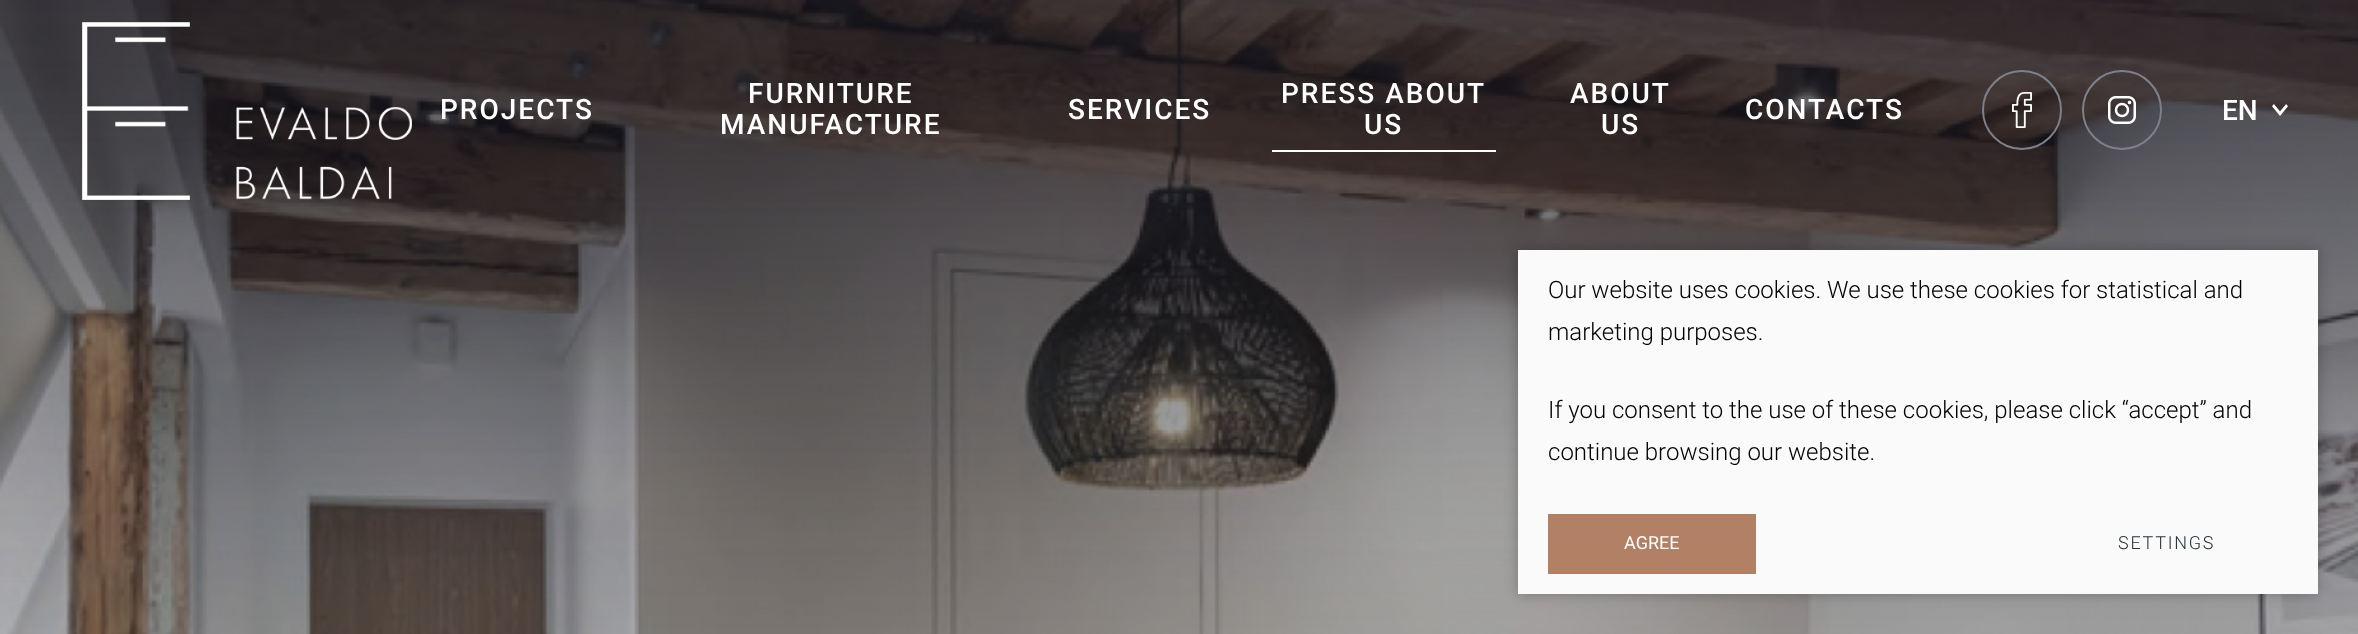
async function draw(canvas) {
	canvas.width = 2358;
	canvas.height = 634;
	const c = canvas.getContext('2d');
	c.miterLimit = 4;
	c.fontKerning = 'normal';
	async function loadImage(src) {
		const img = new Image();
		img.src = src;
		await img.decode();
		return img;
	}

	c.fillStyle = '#fff';
	c.fillRect(0, 0, 2358, 634);
	c.drawImage(await loadImage('img1.png'), 0, 0, 2358, 634);
	c.drawImage(await loadImage('img2.png'), 0, 0, 2358, 634);
	c.drawImage(await loadImage('img3.png'), 82, 22, 330, 178);
	c.letterSpacing = '2px';
	c.font = '500 28px Roboto';
	for (const [text, x, y] of [
		['PROJECTS', 440, 119],
		['FURNITURE', 748, 103],
		['MANUFACTURE', 720, 134],
		['SERVICES', 1068, 119],
		['PRESS ABOUT', 1281, 103],
		['US', 1364, 134],
	]) {
		c.fillText(text, x, y);
	}
	c.fillRect(1272, 150, 224, 2);
	for (const [text, x, y] of [
		['ABOUT', 1570, 103],
		['US', 1601, 134],
		['CONTACTS', 1745, 119],
	]) {
		c.fillText(text, x, y);
	}
	c.beginPath();
	c.arc(2022, 110, 39, 0, 2 * Math.PI);
	c.strokeStyle = '#7f808a';
	c.lineWidth = 2;
	c.stroke();
	c.drawImage(await loadImage('img4.png'), 2012, 92, 20, 36);
	c.beginPath();
	c.arc(2122, 110, 39, 0, 2 * Math.PI);
	c.stroke();
	c.drawImage(await loadImage('img5.png'), 2108, 96, 28, 28);
	c.letterSpacing = '0px';
	c.fillText('EN', 2222, 120);
	c.drawImage(await loadImage('img6.png'), 2272, 104, 16, 12);
	c.fillStyle = '#00000040';
	c.filter = 'blur(7px)';
	c.beginPath();
	c.rect(1518, 250, 800, 344);
	c.fill();
	c.filter = 'none';
	c.fillStyle = '#fafafa';
	c.fillRect(1518, 250, 800, 344);
	c.font = '300 24px Roboto';
	c.fillStyle = '#000';
	for (const [text, x, y] of [
		['Our website uses cookies. We use these cookies for statistical and', 1548, 298],
		['marketing purposes.', 1548, 340],
		['If you consent to the use of these cookies, please click “accept” and', 1548, 418],
		['continue browsing our website.', 1548, 460],
	]) {
		c.fillText(text, x, y);
	}
	c.fillStyle = '#b18065';
	c.fillRect(1548, 514, 208, 60);
	c.font = '18px Roboto';
	c.fillStyle = '#fff';
	c.fillText('AGREE', 1624, 549);
	c.letterSpacing = '1.75px';
	c.font = '300 18px Roboto';
	c.fillStyle = '#263238';
	c.fillText('SETTINGS', 2118, 549);
}

draw(document.querySelector('canvas'));
